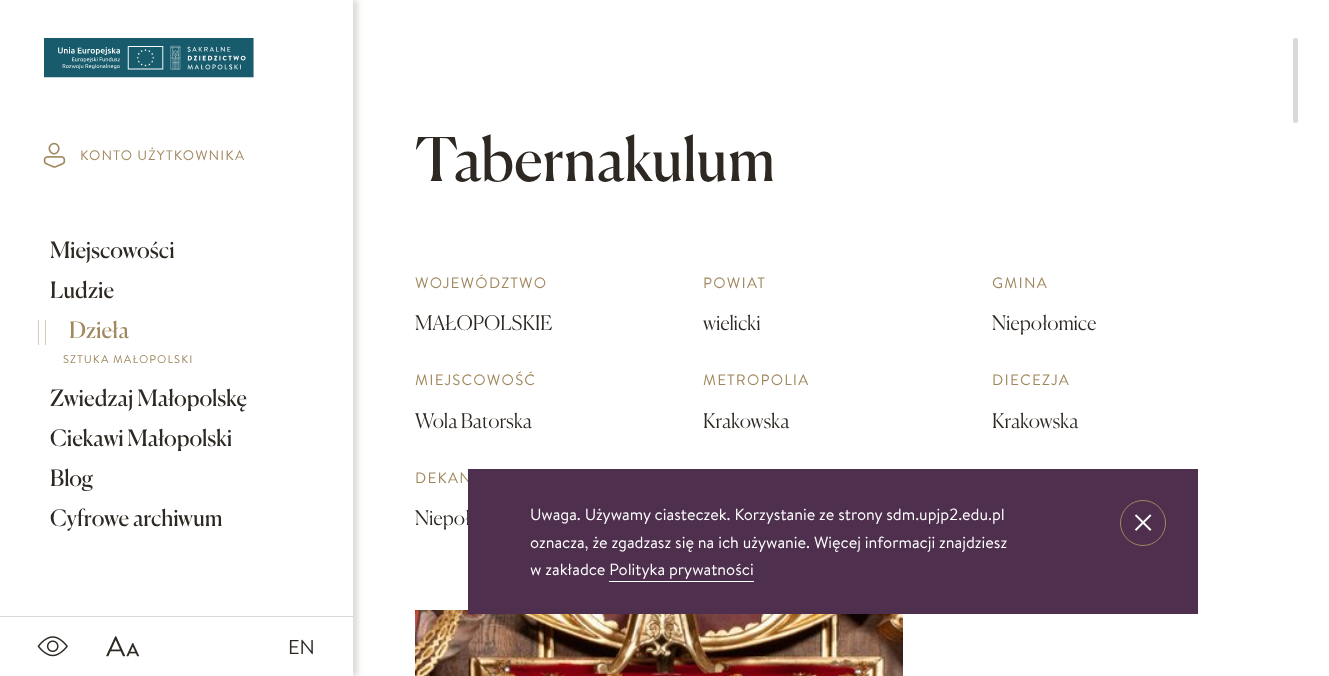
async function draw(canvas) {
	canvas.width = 1329;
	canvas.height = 676;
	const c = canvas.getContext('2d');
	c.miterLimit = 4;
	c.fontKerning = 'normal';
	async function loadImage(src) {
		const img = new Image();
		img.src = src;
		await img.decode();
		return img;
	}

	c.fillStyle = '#fff';
	c.fillRect(0, 0, 1329, 676);
	c.save();
	c.beginPath();
	c.moveTo(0, 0);
	c.lineTo(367, 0);
	c.lineTo(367, 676);
	c.lineTo(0, 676);
	c.closePath();
	c.moveTo(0, 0);
	c.lineTo(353, 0);
	c.lineTo(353, 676);
	c.lineTo(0, 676);
	c.closePath();
	c.clip('evenodd');
	c.fillStyle = '#7e776b40';
	c.filter = 'blur(2.5px)';
	c.beginPath();
	c.rect(5, 0, 353, 676);
	c.fill();
	c.filter = 'none';
	c.restore();
	c.drawImage(await loadImage('img1.png'), 44, 38, 210, 40);
	c.drawImage(await loadImage('img2.png'), 43, 142, 23, 26);
	c.letterSpacing = '1.1px';
	c.font = '13.75px Brandon Grotesque';
	c.fillStyle = '#a0885e';
	c.fillText('KONTO UŻYTKOWNIKA', 80, 160);
	c.letterSpacing = '0px';
	c.font = '22.5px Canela';
	c.fillStyle = '#2e2823';
	c.fillText('Miejscowości', 50, 258);
	c.fillText('Ludzie', 50, 298);
	c.fillStyle = '#d5cbb8';
	c.fillRect(45, 320, 1, 25);
	c.fillRect(38, 320, 1, 25);
	c.fillStyle = '#a0885e';
	c.fillText('Dzieła', 69, 338);
	c.letterSpacing = '1.1px';
	c.font = '11.25px Brandon Grotesque';
	c.fillText('SZTUKA MAŁOPOLSKI', 63, 363);
	c.letterSpacing = '0px';
	c.font = '22.5px Canela';
	c.fillStyle = '#2e2823';
	for (const [text, x, y] of [
		['Zwiedzaj Małopolskę', 50, 406],
		['Ciekawi Małopolski', 50, 446],
		['Blog', 50, 486],
		['Cyfrowe archiwum', 50, 526],
	]) {
		c.fillText(text, x, y);
	}
	c.fillStyle = '#d9d9d9';
	c.fillRect(0, 616, 353, 1);
	c.drawImage(await loadImage('img3.png'), 37, 636, 31, 21);
	c.drawImage(await loadImage('img4.png'), 106, 636, 33, 21);
	c.font = '20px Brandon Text';
	c.fillStyle = '#2e2823';
	c.fillText('EN', 288, 654);
	c.fillStyle = '#d9d9d9';
	c.beginPath();
	c.roundRect(1293, 38, 5, 85, 2.5);
	c.fill();
	c.font = '60px Canela';
	c.fillStyle = '#2e2823';
	c.fillText('Tabernakulum', 415, 181);
	c.letterSpacing = '1.25px';
	c.font = '15px Brandon Grotesque';
	c.fillStyle = '#a0885e';
	c.fillText('WOJEWÓDZTWO', 415, 288);
	c.letterSpacing = '0px';
	c.font = '300 20px Canela';
	c.fillStyle = '#2e2823';
	c.fillText('MAŁOPOLSKIE', 415, 330);
	c.letterSpacing = '1.25px';
	c.font = '15px Brandon Grotesque';
	c.fillStyle = '#a0885e';
	c.fillText('POWIAT', 703, 288);
	c.letterSpacing = '0px';
	c.font = '300 20px Canela';
	c.fillStyle = '#2e2823';
	c.fillText('wielicki', 703, 330);
	c.letterSpacing = '1.25px';
	c.font = '15px Brandon Grotesque';
	c.fillStyle = '#a0885e';
	c.fillText('GMINA', 992, 288);
	c.letterSpacing = '0px';
	c.font = '300 20px Canela';
	c.fillStyle = '#2e2823';
	c.fillText('Niepołomice', 992, 330);
	c.letterSpacing = '1.25px';
	c.font = '15px Brandon Grotesque';
	c.fillStyle = '#a0885e';
	c.fillText('MIEJSCOWOŚĆ', 415, 385);
	c.letterSpacing = '0px';
	c.font = '300 20px Canela';
	c.fillStyle = '#2e2823';
	c.fillText('Wola Batorska', 415, 428);
	c.letterSpacing = '1.25px';
	c.font = '15px Brandon Grotesque';
	c.fillStyle = '#a0885e';
	c.fillText('METROPOLIA', 703, 385);
	c.letterSpacing = '0px';
	c.font = '300 20px Canela';
	c.fillStyle = '#2e2823';
	c.fillText('Krakowska', 703, 428);
	c.letterSpacing = '1.25px';
	c.font = '15px Brandon Grotesque';
	c.fillStyle = '#a0885e';
	c.fillText('DIECEZJA', 992, 385);
	c.letterSpacing = '0px';
	c.font = '300 20px Canela';
	c.fillStyle = '#2e2823';
	c.fillText('Krakowska', 992, 428);
	c.letterSpacing = '1.25px';
	c.font = '15px Brandon Grotesque';
	c.fillStyle = '#a0885e';
	c.fillText('DEKAN', 415, 483);
	c.letterSpacing = '0px';
	c.font = '300 20px Canela';
	c.fillStyle = '#2e2823';
	c.fillText('Niepoł', 415, 525);
	c.drawImage(await loadImage('img5.png'), 415, 610, 488, 66);
	c.fillStyle = '#4e2f4d';
	c.fillRect(468, 469, 730, 145);
	c.font = '16.25px Brandon Text';
	c.fillStyle = '#fff';
	for (const [text, x, y] of [
		['Uwaga. Używamy ciasteczek. Korzystanie ze strony sdm.upjp2.edu.pl', 530, 520],
		['oznacza, że zgadzasz się na ich używanie. Więcej informacji znajdziesz', 530, 548],
		['w zakładce Polityka prywatności', 530, 575],
	]) {
		c.fillText(text, x, y);
	}
	c.fillRect(609, 581, 145, 1);
	c.beginPath();
	c.arc(1143, 523, 22.5, 0, 2 * Math.PI);
	c.strokeStyle = '#a0885e';
	c.stroke();
	c.drawImage(await loadImage('img6.png'), 1134, 514, 18, 17);
}

draw(document.querySelector('canvas'));
